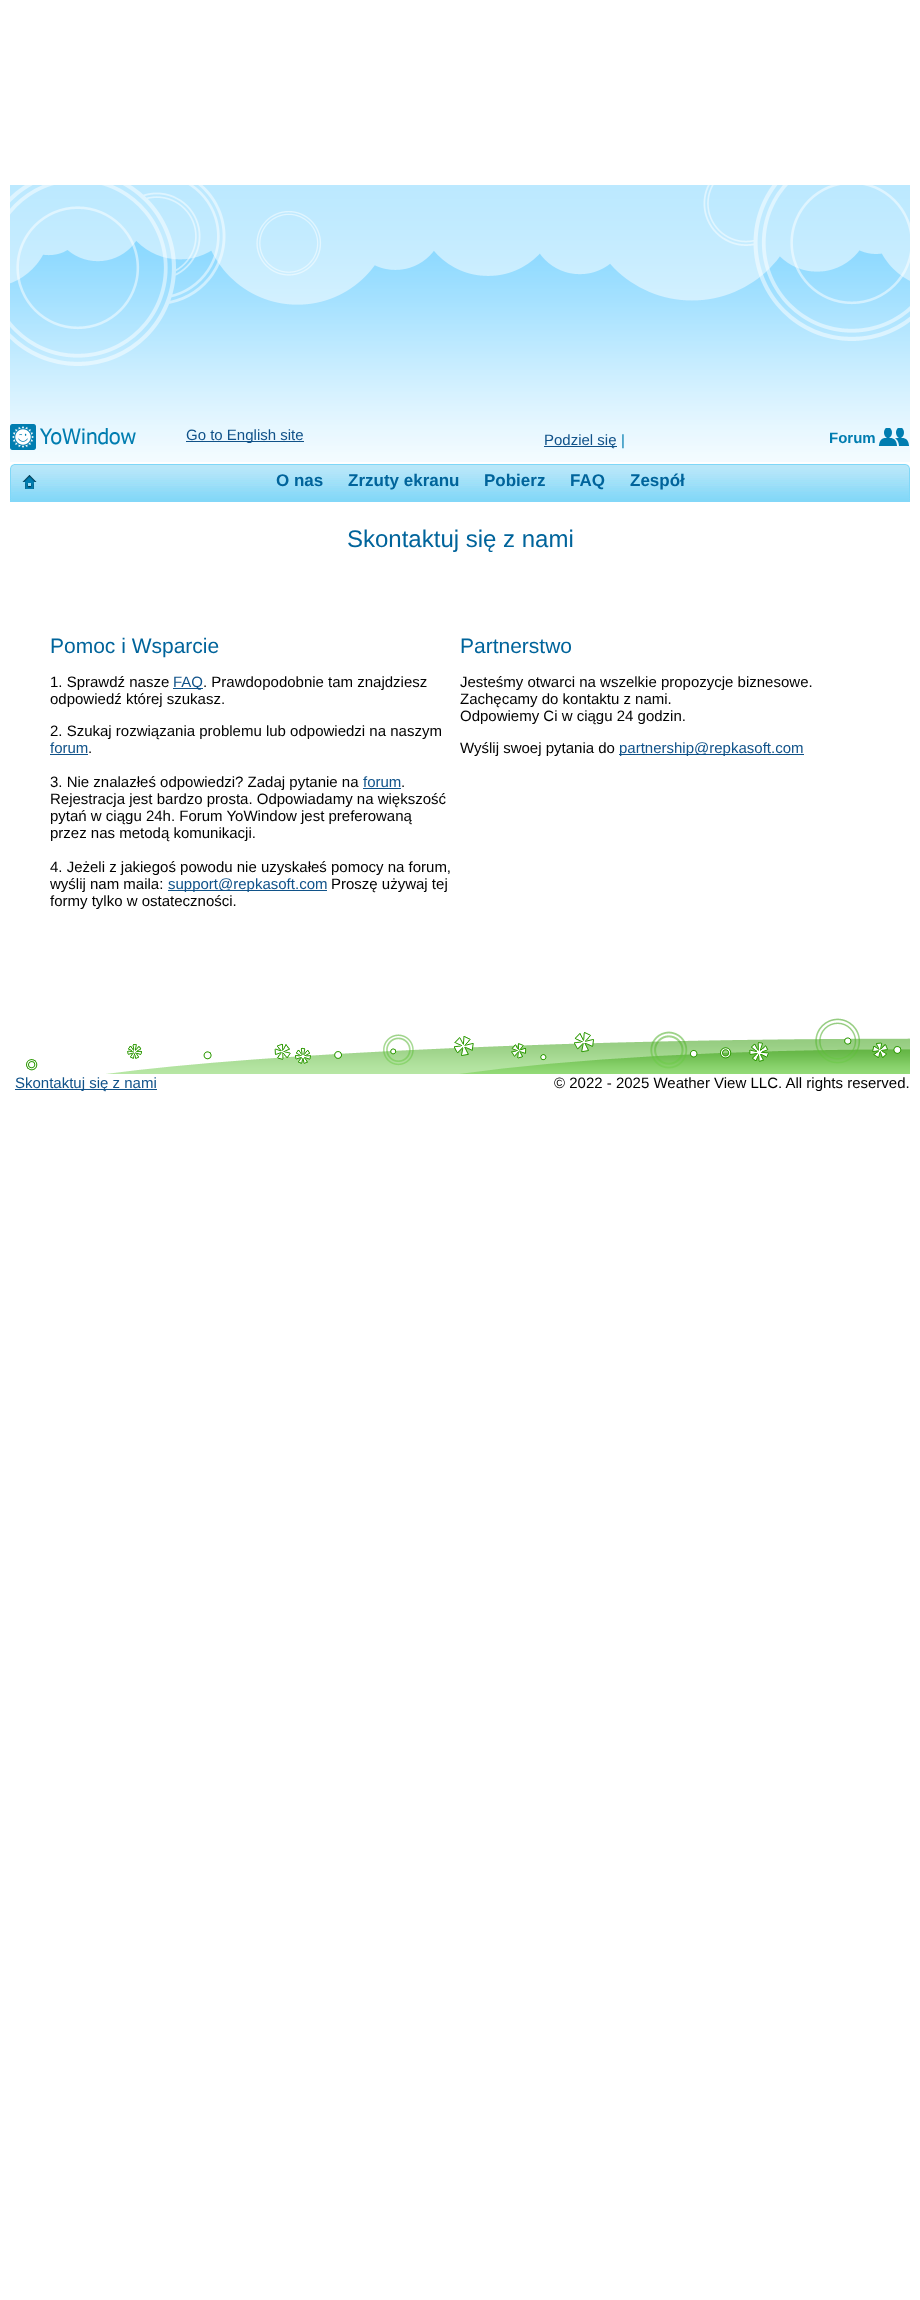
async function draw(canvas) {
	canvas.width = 920;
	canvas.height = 2300;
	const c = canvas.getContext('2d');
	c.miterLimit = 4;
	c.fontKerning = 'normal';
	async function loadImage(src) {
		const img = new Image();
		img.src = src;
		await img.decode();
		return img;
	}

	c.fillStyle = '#fff';
	c.fillRect(0, 0, 920, 2300);
	c.drawImage(await loadImage('img1.png'), 10, 185, 900, 277);
	c.drawImage(await loadImage('img2.png'), 10, 424, 126, 26);
	c.fillStyle = '#105289';
	c.fillRect(186, 441, 118, 1);
	c.font = '15px Liberation Sans';
	c.fillText('Go to English site', 186, 440);
	c.fillRect(544, 446, 73, 1);
	c.fillText('Podziel się', 544, 445);
	c.fillStyle = '#007db0';
	c.fillText('|', 621, 445);
	c.font = 'bold 15px Liberation Sans';
	c.fillText('Forum', 829, 443);
	c.drawImage(await loadImage('img3.png'), 878, 428, 31, 18);
	c.drawImage(await loadImage('img4.png'), 10, 462, 900, 40);
	c.drawImage(await loadImage('img5.png'), 10, 464, 4, 36);
	c.drawImage(await loadImage('img6.png'), 905, 464, 5, 36);
	c.drawImage(await loadImage('img7.png'), 22, 475, 15, 14);
	c.font = 'bold 17px Liberation Sans';
	c.fillStyle = '#00649b';
	for (const [text, x, y] of [
		['O nas', 276, 486],
		['Zrzuty ekranu', 348, 486],
		['Pobierz', 484, 486],
		['FAQ', 570, 486],
		['Zespół', 630, 486],
	]) {
		c.fillText(text, x, y);
	}
	c.font = '24px Liberation Sans';
	c.fillText('Skontaktuj się z nami', 347, 547);
	c.font = '21px Liberation Sans';
	c.fillText('Pomoc i Wsparcie', 50, 653);
	c.font = '15px Liberation Sans';
	c.fillStyle = '#000';
	c.fillText('1. Sprawdź nasze', 50, 687);
	c.fillStyle = '#105289';
	c.fillRect(173, 688, 30, 1);
	c.fillText('FAQ', 173, 687);
	c.fillStyle = '#000';
	for (const [text, x, y] of [
		['. Prawdopodobnie tam znajdziesz', 203, 687],
		['odpowiedź której szukasz.', 50, 704],
		['2. Szukaj rozwiązania problemu lub odpowiedzi na naszym', 50, 736],
	]) {
		c.fillText(text, x, y);
	}
	c.fillStyle = '#105289';
	c.fillText('forum', 50, 753);
	c.fillRect(50, 754, 38, 1);
	c.fillStyle = '#000';
	c.fillText('.', 88, 753);
	c.fillText('3. Nie znalazłeś odpowiedzi? Zadaj pytanie na', 50, 787);
	c.fillStyle = '#105289';
	c.fillText('forum', 363, 787);
	c.fillRect(363, 788, 38, 1);
	c.fillStyle = '#000';
	for (const [text, x, y] of [
		['.', 401, 787],
		['Rejestracja jest bardzo prosta. Odpowiadamy na większość', 50, 804],
		['pytań w ciągu 24h. Forum YoWindow jest preferowaną', 50, 821],
		['przez nas metodą komunikacji.', 50, 838],
		['4. Jeżeli z jakiegoś powodu nie uzyskałeś pomocy na forum,', 50, 872],
		['wyślij nam maila:', 50, 889],
	]) {
		c.fillText(text, x, y);
	}
	c.fillStyle = '#105289';
	c.fillRect(168, 890, 159, 1);
	c.fillText('support@repkasoft.com', 168, 889);
	c.fillStyle = '#000';
	c.fillText('Proszę używaj tej', 331, 889);
	c.fillText('formy tylko w ostateczności.', 50, 906);
	c.font = '21px Liberation Sans';
	c.fillStyle = '#00649b';
	c.fillText('Partnerstwo', 460, 653);
	c.font = '15px Liberation Sans';
	c.fillStyle = '#000';
	for (const [text, x, y] of [
		['Jesteśmy otwarci na wszelkie propozycje biznesowe.', 460, 687],
		['Zachęcamy do kontaktu z nami.', 460, 704],
		['Odpowiemy Ci w ciągu 24 godzin.', 460, 721],
		['Wyślij swoej pytania do', 460, 753],
	]) {
		c.fillText(text, x, y);
	}
	c.fillStyle = '#105289';
	c.fillRect(619, 754, 185, 1);
	c.fillText('partnership@repkasoft.com', 619, 753);
	c.drawImage(await loadImage('img8.png'), 26, 1018, 884, 56);
	c.fillRect(15, 1089, 142, 1);
	c.fillText('Skontaktuj się z nami', 15, 1088);
	c.fillStyle = '#000';
	c.fillText('© 2022 - 2025 Weather View LLC. All rights reserved.', 554, 1088);
}

draw(document.querySelector('canvas'));
